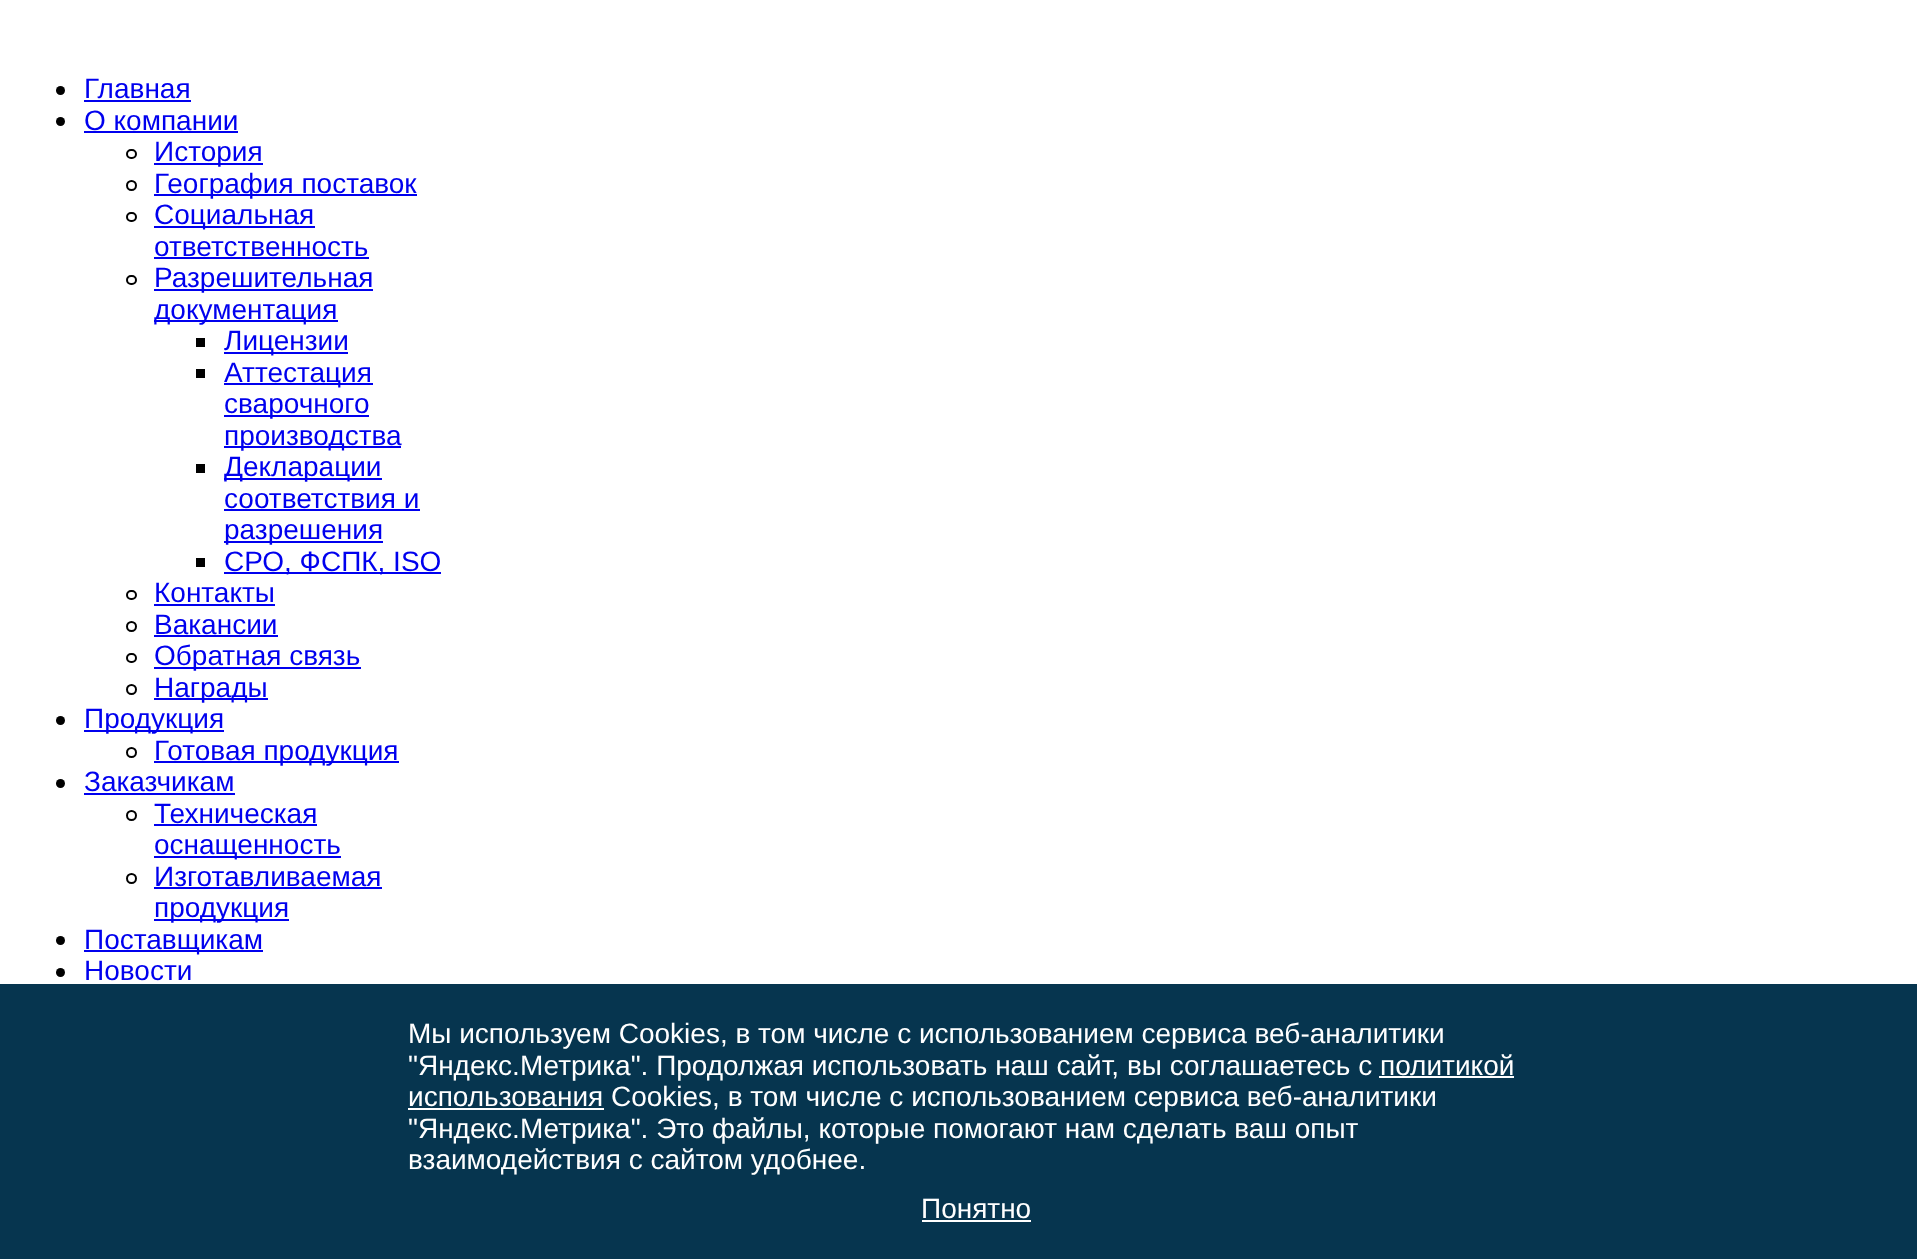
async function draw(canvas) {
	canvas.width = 1917;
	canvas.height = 1259;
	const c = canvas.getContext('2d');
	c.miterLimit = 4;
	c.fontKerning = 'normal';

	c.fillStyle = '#fff';
	c.fillRect(0, 0, 1917, 1259);
	c.fillStyle = '#000';
	c.beginPath();
	c.arc(60.5, 90.5, 4.5, 0, 2 * Math.PI);
	c.fill();
	c.font = '28px Liberation Sans';
	c.fillStyle = '#00e';
	c.fillText('Главная', 84, 98);
	c.fillRect(84, 100, 107, 2);
	c.fillStyle = '#000';
	c.beginPath();
	c.arc(60.5, 121.5, 4.5, 0, 2 * Math.PI);
	c.fill();
	c.fillStyle = '#00e';
	c.fillText('О компании', 84, 130);
	c.fillRect(84, 131, 154, 2);
	c.beginPath();
	c.roundRect(127, 150, 9, 8, 4);
	c.strokeStyle = '#000';
	c.lineWidth = 2;
	c.stroke();
	c.fillRect(154, 163, 109, 2);
	c.fillText('История', 154, 161);
	c.beginPath();
	c.arc(131.5, 185.5, 4.5, 0, 2 * Math.PI);
	c.stroke();
	c.fillRect(154, 194, 263, 2);
	c.fillText('География поставок', 154, 193);
	c.beginPath();
	c.roundRect(127, 213, 9, 8, 4);
	c.stroke();
	c.fillRect(154, 226, 161, 2);
	c.fillText('Социальная', 154, 224);
	c.fillText('ответственность', 154, 256);
	c.fillRect(154, 257, 215, 2);
	c.beginPath();
	c.roundRect(127, 276, 9, 8, 4);
	c.stroke();
	c.fillRect(154, 289, 219, 2);
	c.fillText('Разрешительная', 154, 287);
	c.fillRect(154, 320, 184, 2);
	c.fillText('документация', 154, 319);
	c.fillStyle = '#000';
	c.fillRect(196, 338, 9, 9);
	c.fillStyle = '#00e';
	c.fillRect(224, 352, 124, 2);
	c.fillText('Лицензии', 224, 350);
	c.fillStyle = '#000';
	c.fillRect(196, 369, 9, 9);
	c.fillStyle = '#00e';
	c.fillRect(224, 383, 149, 2);
	c.fillText('Аттестация', 224, 382);
	c.fillRect(224, 415, 145, 2);
	c.fillText('сварочного', 224, 413);
	c.fillRect(224, 446, 177, 2);
	c.fillText('производства', 224, 445);
	c.fillStyle = '#000';
	c.fillRect(196, 464, 9, 9);
	c.fillStyle = '#00e';
	c.fillRect(224, 478, 158, 2);
	c.fillText('Декларации', 224, 476);
	c.fillText('соответствия и', 224, 508);
	c.fillRect(224, 509, 196, 2);
	c.fillRect(224, 541, 159, 2);
	c.fillText('разрешения', 224, 539);
	c.fillStyle = '#000';
	c.fillRect(196, 558, 9, 9);
	c.fillStyle = '#00e';
	c.fillRect(224, 572, 217, 2);
	c.fillText('СРО, ФСПК, ISO', 224, 571);
	c.beginPath();
	c.roundRect(127, 591, 9, 8, 4);
	c.stroke();
	c.fillText('Контакты', 154, 602);
	c.fillRect(154, 604, 121, 2);
	c.beginPath();
	c.arc(131.5, 626.5, 4.5, 0, 2 * Math.PI);
	c.stroke();
	c.fillText('Вакансии', 154, 634);
	c.fillRect(154, 635, 124, 2);
	c.beginPath();
	c.roundRect(127, 654, 9, 8, 4);
	c.stroke();
	c.fillRect(154, 667, 207, 2);
	c.fillText('Обратная связь', 154, 665);
	c.beginPath();
	c.arc(131.5, 689.5, 4.5, 0, 2 * Math.PI);
	c.stroke();
	c.fillRect(154, 698, 114, 2);
	c.fillText('Награды', 154, 697);
	c.fillStyle = '#000';
	c.beginPath();
	c.arc(60.5, 720.5, 4.5, 0, 2 * Math.PI);
	c.fill();
	c.fillStyle = '#00e';
	c.fillRect(84, 730, 140, 2);
	c.fillText('Продукция', 84, 728);
	c.beginPath();
	c.arc(131.5, 752.5, 4.5, 0, 2 * Math.PI);
	c.stroke();
	c.fillRect(154, 761, 245, 2);
	c.fillText('Готовая продукция', 154, 760);
	c.fillStyle = '#000';
	c.beginPath();
	c.arc(60.5, 783.5, 4.5, 0, 2 * Math.PI);
	c.fill();
	c.fillStyle = '#00e';
	c.fillText('Заказчикам', 84, 791);
	c.fillRect(84, 793, 151, 2);
	c.beginPath();
	c.arc(131.5, 815.5, 4.5, 0, 2 * Math.PI);
	c.stroke();
	c.fillText('Техническая', 154, 823);
	c.fillRect(154, 824, 163, 2);
	c.fillRect(154, 856, 187, 2);
	c.fillText('оснащенность', 154, 854);
	c.beginPath();
	c.arc(131.5, 878.5, 4.5, 0, 2 * Math.PI);
	c.stroke();
	c.fillText('Изготавливаемая', 154, 886);
	c.fillRect(154, 887, 228, 2);
	c.fillRect(154, 919, 135, 2);
	c.fillText('продукция', 154, 917);
	c.fillStyle = '#000';
	c.beginPath();
	c.arc(60.5, 940.5, 4.5, 0, 2 * Math.PI);
	c.fill();
	c.fillStyle = '#00e';
	c.fillRect(84, 950, 179, 2);
	c.fillText('Поставщикам', 84, 949);
	c.fillStyle = '#000';
	c.beginPath();
	c.arc(60.5, 972.5, 4.5, 0, 2 * Math.PI);
	c.fill();
	c.fillStyle = '#00e';
	c.fillText('Новости', 84, 980);
	c.fillStyle = '#06354f';
	c.fillRect(0, 984, 1917, 275);
	c.fillStyle = '#fff';
	c.fillText('Мы используем Cookies, в том числе с использованием сервиса веб-аналитики', 408, 1043);
	c.fillText('"Яндекс.Метрика". Продолжая использовать наш сайт, вы соглашаетесь с политикой', 408, 1075);
	c.fillRect(408, 1108, 196, 2);
	c.fillText('использования Cookies, в том числе с использованием сервиса веб-аналитики', 408, 1106);
	c.fillRect(1379, 1076, 135, 2);
	for (const [text, x, y] of [
		['"Яндекс.Метрика". Это файлы, которые помогают нам сделать ваш опыт', 408, 1138],
		['взаимодействия с сайтом удобнее.', 408, 1169],
		['Понятно', 921, 1218],
	]) {
		c.fillText(text, x, y);
	}
	c.fillRect(922, 1220, 109, 2);
}

draw(document.querySelector('canvas'));
